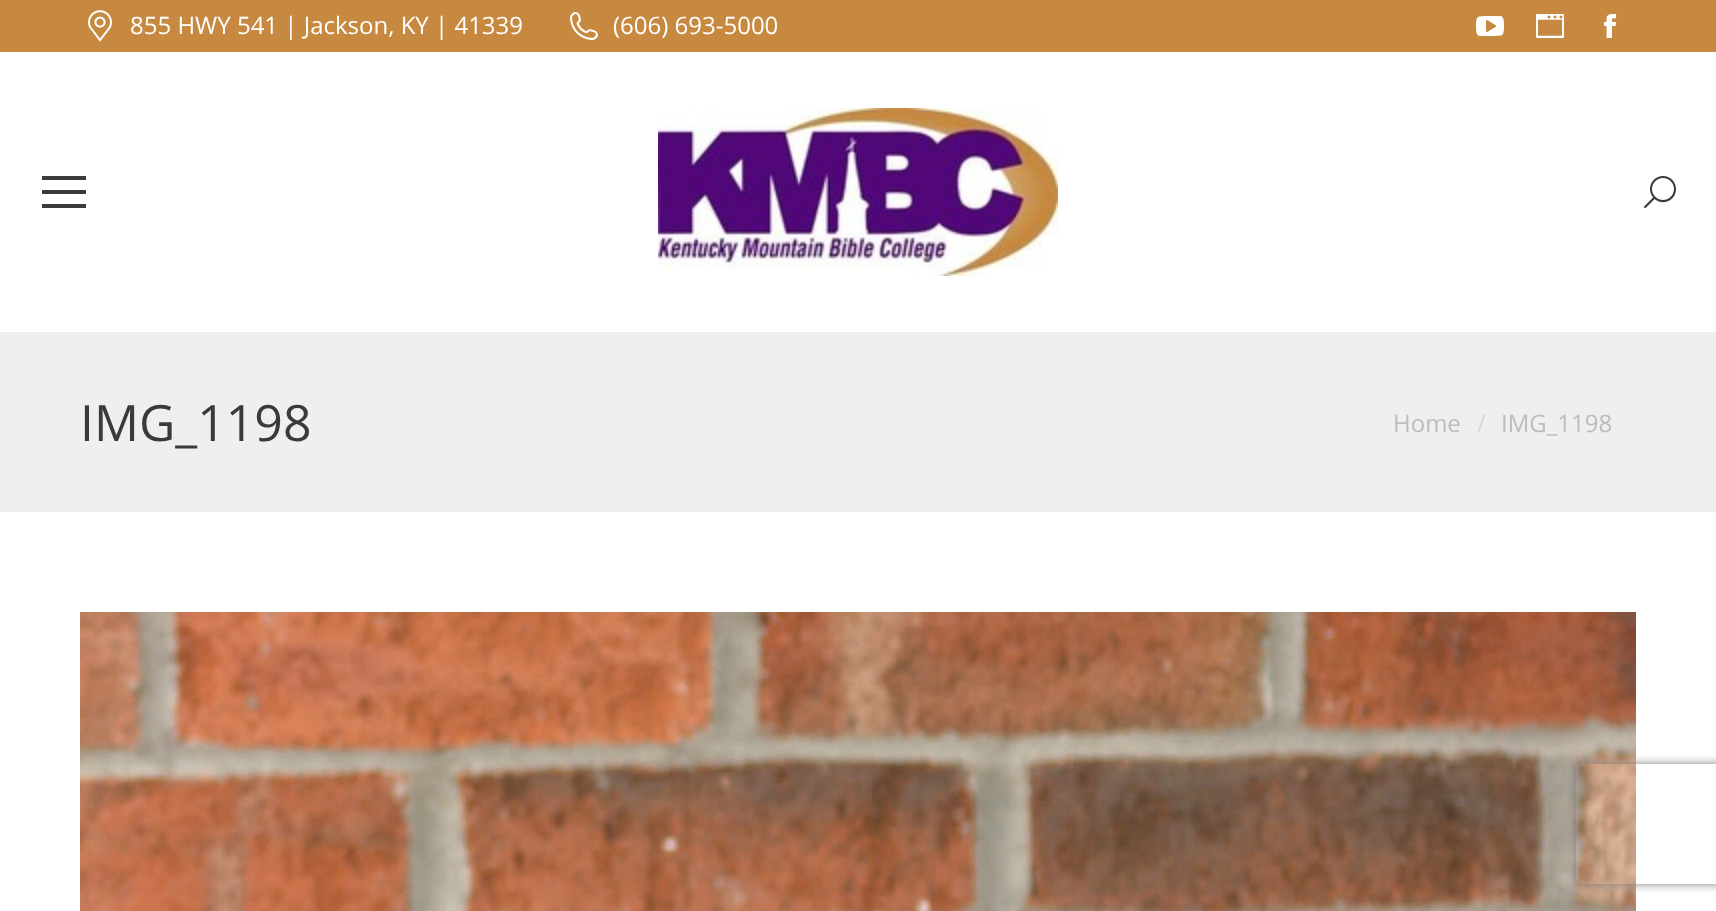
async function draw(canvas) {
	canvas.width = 1716;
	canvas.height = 911;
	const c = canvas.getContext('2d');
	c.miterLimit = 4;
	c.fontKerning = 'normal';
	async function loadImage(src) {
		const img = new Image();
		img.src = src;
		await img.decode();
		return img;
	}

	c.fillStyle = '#fff';
	c.fillRect(0, 0, 1716, 911);
	c.fillStyle = '#c6893f';
	c.fillRect(0, 0, 1716, 52);
	c.drawImage(await loadImage('img1.png'), 88, 10, 24, 32);
	c.font = '24px Open Sans';
	c.fillStyle = '#fff';
	c.fillText('855 HWY 541 | Jackson, KY | 41339', 130, 34);
	c.drawImage(await loadImage('img2.png'), 570, 12, 28, 28);
	c.fillText('(606) 693-5000', 613, 34);
	c.drawImage(await loadImage('img3.png'), 1476, 16, 28, 20);
	c.drawImage(await loadImage('img4.png'), 1536, 14, 28, 24);
	c.drawImage(await loadImage('img5.png'), 1603, 14, 14, 24);
	for (const [x, y, w, h, color] of [
		[42, 176, 44, 4, '#3a3a3a'],
		[42, 190, 44, 4, '#3a3a3a'],
		[42, 204, 44, 4, '#3a3a3a'],
	]) {
		c.fillStyle = color;
		c.fillRect(x, y, w, h);
	}
	c.drawImage(await loadImage('img6.png'), 658, 108, 400, 168);
	c.drawImage(await loadImage('img7.png'), 1644, 176, 32, 32);
	c.fillStyle = '#efefef';
	c.fillRect(0, 332, 1716, 180);
	c.font = '50px Open Sans';
	c.fillStyle = '#3a3a3a';
	c.fillText('IMG_1198', 80, 441);
	c.font = '24px Open Sans';
	c.fillStyle = '#bcbcbc';
	c.fillText('Home', 1393, 432);
	c.fillStyle = '#d6d6d6';
	c.fillText('/', 1477, 432);
	c.fillStyle = '#bcbcbc';
	c.fillText('IMG_1198', 1501, 432);
	c.drawImage(await loadImage('img8.png'), 80, 612, 1556, 299);
	c.save();
	c.beginPath();
	c.moveTo(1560, 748);
	c.lineTo(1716, 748);
	c.lineTo(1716, 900);
	c.lineTo(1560, 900);
	c.closePath();
	c.moveTo(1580, 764);
	c.lineTo(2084, 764);
	c.bezierCurveTo(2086, 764, 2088, 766, 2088, 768);
	c.lineTo(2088, 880);
	c.bezierCurveTo(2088, 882, 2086, 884, 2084, 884);
	c.lineTo(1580, 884);
	c.bezierCurveTo(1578, 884, 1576, 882, 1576, 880);
	c.lineTo(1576, 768);
	c.bezierCurveTo(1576, 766, 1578, 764, 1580, 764);
	c.closePath();
	c.clip('evenodd');
	c.fillStyle = '#808080';
	c.filter = 'blur(5px)';
	c.beginPath();
	c.roundRect(1576, 764, 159, 120, 4);
	c.fill();
	c.filter = 'none';
	c.restore();
}

draw(document.querySelector('canvas'));
